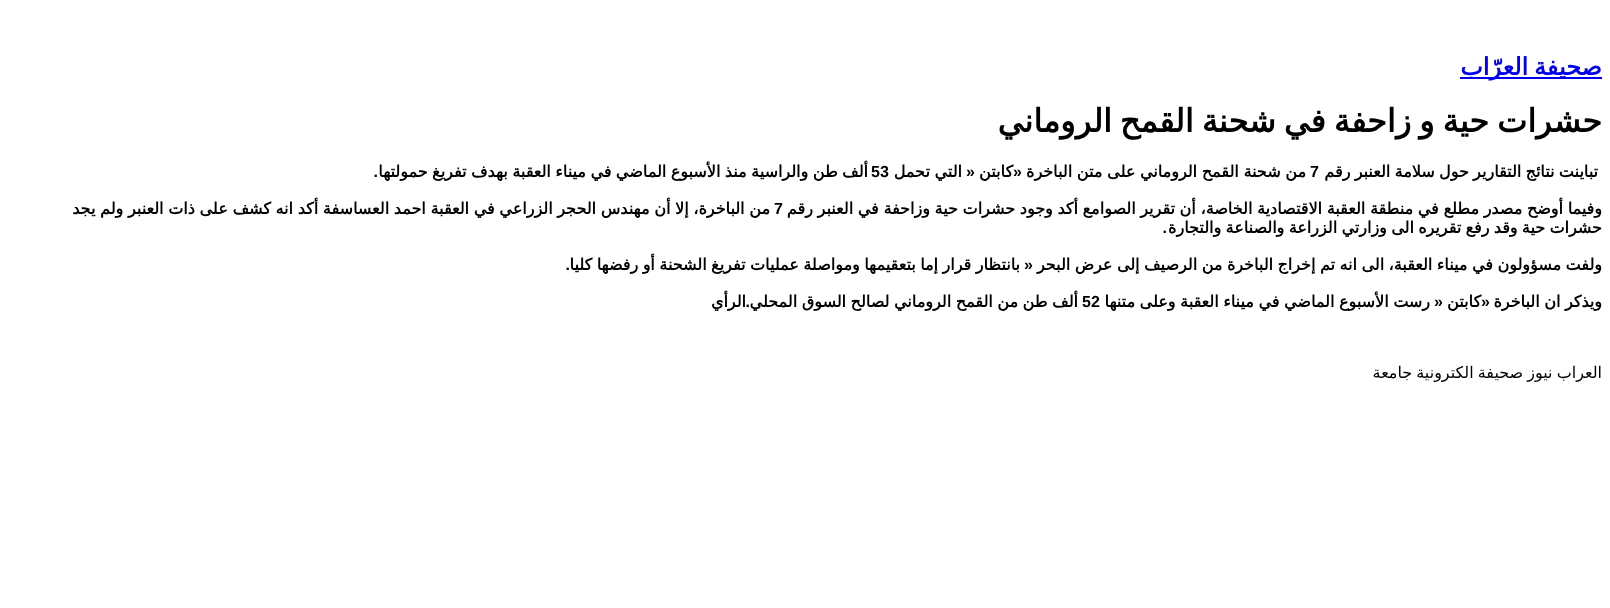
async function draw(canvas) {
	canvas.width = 1610;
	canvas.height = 608;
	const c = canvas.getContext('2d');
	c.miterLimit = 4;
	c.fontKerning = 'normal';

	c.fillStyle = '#fff';
	c.fillRect(0, 0, 1610, 608);
	c.fillStyle = '#00e';
	c.fillRect(1460, 77, 142, 2);
	c.wordSpacing = '-2px';
	c.direction = 'rtl';
	c.font = 'bold 24px DejaVu Sans';
	c.fillText('صحيفة العرّاب', 1602, 75);
	c.wordSpacing = '-2.25px';
	c.font = 'bold 32px DejaVu Sans';
	c.fillStyle = '#000';
	c.fillText('حشرات حية و زاحفة في شحنة القمح الروماني', 1602, 132);
	c.wordSpacing = '-0.75px';
	c.font = 'bold 16px DejaVu Sans';
	c.fillText('تباينت نتائج التقارير حول سلامة العنبر رقم', 1598, 177);
	c.wordSpacing = '0px';
	c.direction = 'ltr';
	c.font = 'bold 16px Liberation Sans';
	c.fillText('7', 1310, 177);
	c.wordSpacing = '-0.4px';
	c.direction = 'rtl';
	c.font = 'bold 16px DejaVu Sans';
	c.fillText('من شحنة القمح الروماني على متن الباخرة', 1306, 177);
	c.wordSpacing = '0px';
	c.fillText('كابتن', 1013, 177);
	c.font = 'bold 16px Liberation Sans';
	c.fillText('«', 1022, 177);
	c.fillText('«', 975, 177);
	c.wordSpacing = '-0.4px';
	c.font = 'bold 16px DejaVu Sans';
	c.fillText('التي تحمل', 962, 177);
	c.wordSpacing = '-0.6px';
	c.fillText('ألف طن والراسية منذ الأسبوع الماضي في ميناء العقبة بهدف تفريغ حمولتها', 868, 177);
	c.wordSpacing = '0px';
	c.direction = 'ltr';
	c.font = 'bold 16px Liberation Sans';
	c.fillText('53', 871, 177);
	c.direction = 'rtl';
	c.fillText('.', 378, 177);
	c.wordSpacing = '-0.4px';
	c.font = 'bold 16px DejaVu Sans';
	c.fillText('وفيما أوضح مصدر مطلع في منطقة العقبة الاقتصادية الخاصة، أن تقرير الصوامع أكد وجود حشرات حية وزاحفة في العنبر رقم', 1602, 214);
	c.fillText('من الباخرة، إلا أن مهندس الحجر الزراعي في العقبة احمد العساسفة أكد انه كشف على ذات العنبر ولم يجد', 770, 214);
	c.wordSpacing = '0px';
	c.direction = 'ltr';
	c.font = 'bold 16px Liberation Sans';
	c.fillText('7', 774, 214);
	c.wordSpacing = '-0.75px';
	c.direction = 'rtl';
	c.font = 'bold 16px DejaVu Sans';
	c.fillText('حشرات حية وقد رفع تقريره الى وزارتي الزراعة والصناعة والتجارة', 1602, 233);
	c.wordSpacing = '0px';
	c.font = 'bold 16px Liberation Sans';
	c.fillText('.', 1167, 233);
	c.wordSpacing = '-0.6px';
	c.font = 'bold 16px DejaVu Sans';
	c.fillText('ولفت مسؤولون في ميناء العقبة، الى انه تم إخراج الباخرة من الرصيف إلى عرض البحر', 1602, 270);
	c.fillText('بانتظار قرار إما بتعقيمها ومواصلة عمليات تفريغ الشحنة أو رفضها كليا', 1020, 270);
	c.wordSpacing = '0px';
	c.font = 'bold 16px Liberation Sans';
	c.fillText('«', 1033, 270);
	c.fillText('.', 570, 270);
	c.wordSpacing = '-0.5px';
	c.font = 'bold 16px DejaVu Sans';
	c.fillText('ويذكر ان الباخرة', 1602, 307);
	c.wordSpacing = '0px';
	c.font = 'bold 16px Liberation Sans';
	c.fillText('«', 1490, 307);
	c.font = 'bold 16px DejaVu Sans';
	c.fillText('كابتن', 1481, 307);
	c.font = 'bold 16px Liberation Sans';
	c.fillText('«', 1443, 307);
	c.wordSpacing = '-0.5px';
	c.font = 'bold 16px DejaVu Sans';
	c.fillText('رست الأسبوع الماضي في ميناء العقبة وعلى متنها', 1430, 307);
	c.wordSpacing = '0px';
	c.direction = 'ltr';
	c.font = 'bold 16px Liberation Sans';
	c.fillText('52', 1082, 307);
	c.wordSpacing = '-0.5px';
	c.direction = 'rtl';
	c.font = 'bold 16px DejaVu Sans';
	c.fillText('ألف طن من القمح الروماني لصالح السوق المحلي', 1078, 307);
	c.wordSpacing = '0px';
	c.font = 'bold 16px Liberation Sans';
	c.fillText('.', 750, 307);
	c.font = 'bold 16px DejaVu Sans';
	c.fillText('الرأي', 746, 307);
	c.wordSpacing = '-1px';
	c.font = '16px DejaVu Sans';
	c.fillText('العراب نيوز صحيفة الكترونية جامعة', 1602, 378);
}

draw(document.querySelector('canvas'));
